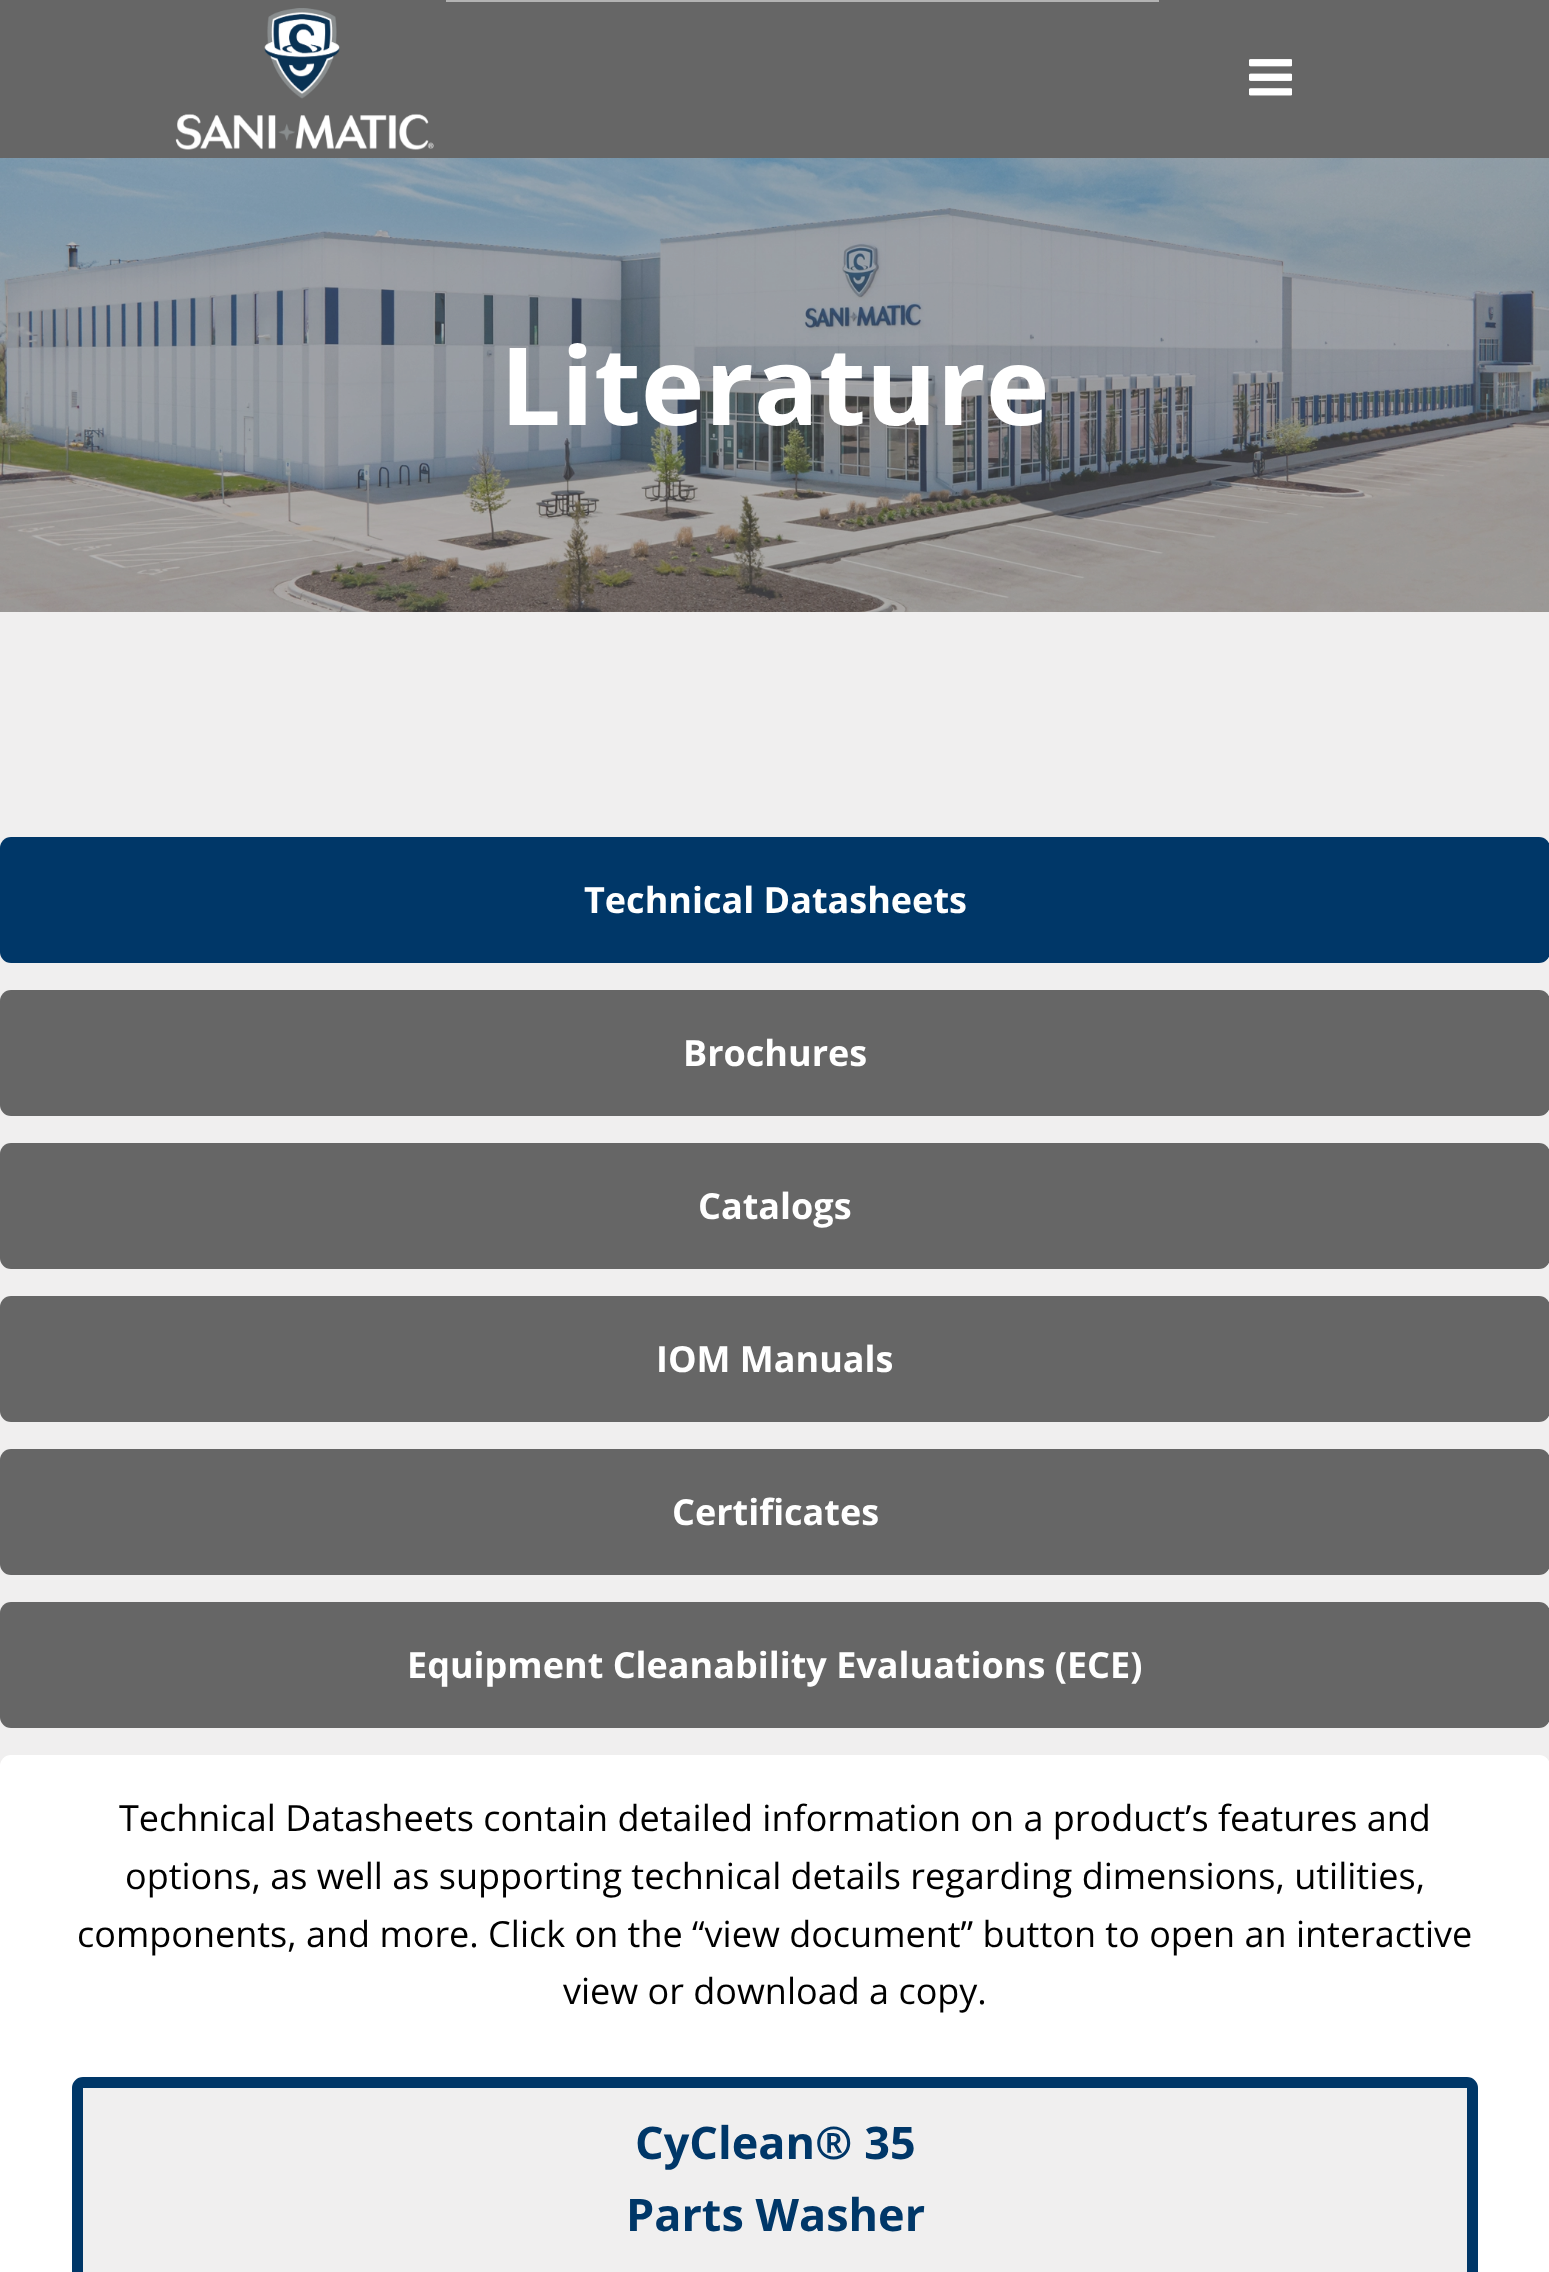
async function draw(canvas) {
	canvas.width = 1549;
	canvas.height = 2272;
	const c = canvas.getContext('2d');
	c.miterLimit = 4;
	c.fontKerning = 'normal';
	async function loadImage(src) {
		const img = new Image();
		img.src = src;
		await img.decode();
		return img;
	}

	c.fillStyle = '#fff';
	c.fillRect(0, 0, 1549, 2272);
	c.fillStyle = '#666';
	c.fillRect(0, 0, 1549, 158);
	c.fillStyle = '#b3b3b3';
	c.fillRect(446, 0, 713, 2);
	c.drawImage(await loadImage('img1.png'), 175, 8, 259, 142);
	c.drawImage(await loadImage('img2.png'), 1249, 59, 43, 37);
	c.drawImage(await loadImage('img3.png'), 0, 158, 1549, 454);
	c.font = 'bold 108px Open Sans';
	c.fillStyle = '#fff';
	c.fillText('Literature', 500, 425);
	c.fillStyle = '#f0efef';
	c.fillRect(0, 612, 1549, 1154);
	c.fillStyle = '#003768';
	c.beginPath();
	c.roundRect(0, 837, 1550, 126, 11);
	c.fill();
	c.font = 'bold 36px Open Sans';
	c.fillStyle = '#fff';
	c.fillText('Technical Datasheets', 584, 913);
	c.fillStyle = '#666';
	c.beginPath();
	c.roundRect(0, 990, 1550, 126, 11);
	c.fill();
	c.fillStyle = '#fff';
	c.fillText('Brochures', 683, 1066);
	c.fillStyle = '#666';
	c.beginPath();
	c.roundRect(0, 1143, 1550, 126, 11);
	c.fill();
	c.fillStyle = '#fff';
	c.fillText('Catalogs', 698, 1219);
	c.fillStyle = '#666';
	c.beginPath();
	c.roundRect(0, 1296, 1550, 126, 11);
	c.fill();
	c.fillStyle = '#fff';
	c.fillText('IOM Manuals', 656, 1372);
	c.fillStyle = '#666';
	c.beginPath();
	c.roundRect(0, 1449, 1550, 126, 11);
	c.fill();
	c.fillStyle = '#fff';
	c.fillText('Certificates', 672, 1525);
	c.fillStyle = '#666';
	c.beginPath();
	c.roundRect(0, 1602, 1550, 126, 11);
	c.fill();
	c.fillStyle = '#fff';
	c.fillText('Equipment Cleanability Evaluations (ECE)', 407, 1678);
	c.beginPath();
	c.roundRect(0, 1755, 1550, 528, 11);
	c.fill();
	c.font = '36px Open Sans';
	c.fillStyle = '#000';
	for (const [text, x, y] of [
		['Technical Datasheets contain detailed information on a product’s features and', 119, 1831],
		['options, as well as supporting technical details regarding dimensions, utilities,', 125, 1889],
		['components, and more. Click on the “view document” button to open an interactive', 77, 1947],
		['view or download a copy.', 563, 2004],
	]) {
		c.fillText(text, x, y);
	}
	c.fillStyle = '#f0efef';
	c.beginPath();
	c.roundRect(77.5, 2082.5, 1395, 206, 5.5);
	c.fill();
	c.strokeStyle = '#003768';
	c.lineWidth = 11;
	c.stroke();
	c.font = 'bold 45px Open Sans';
	c.fillStyle = '#003768';
	c.fillText('CyClean® 35', 635, 2159);
	c.fillText('Parts Washer', 626, 2231);
}

draw(document.querySelector('canvas'));
